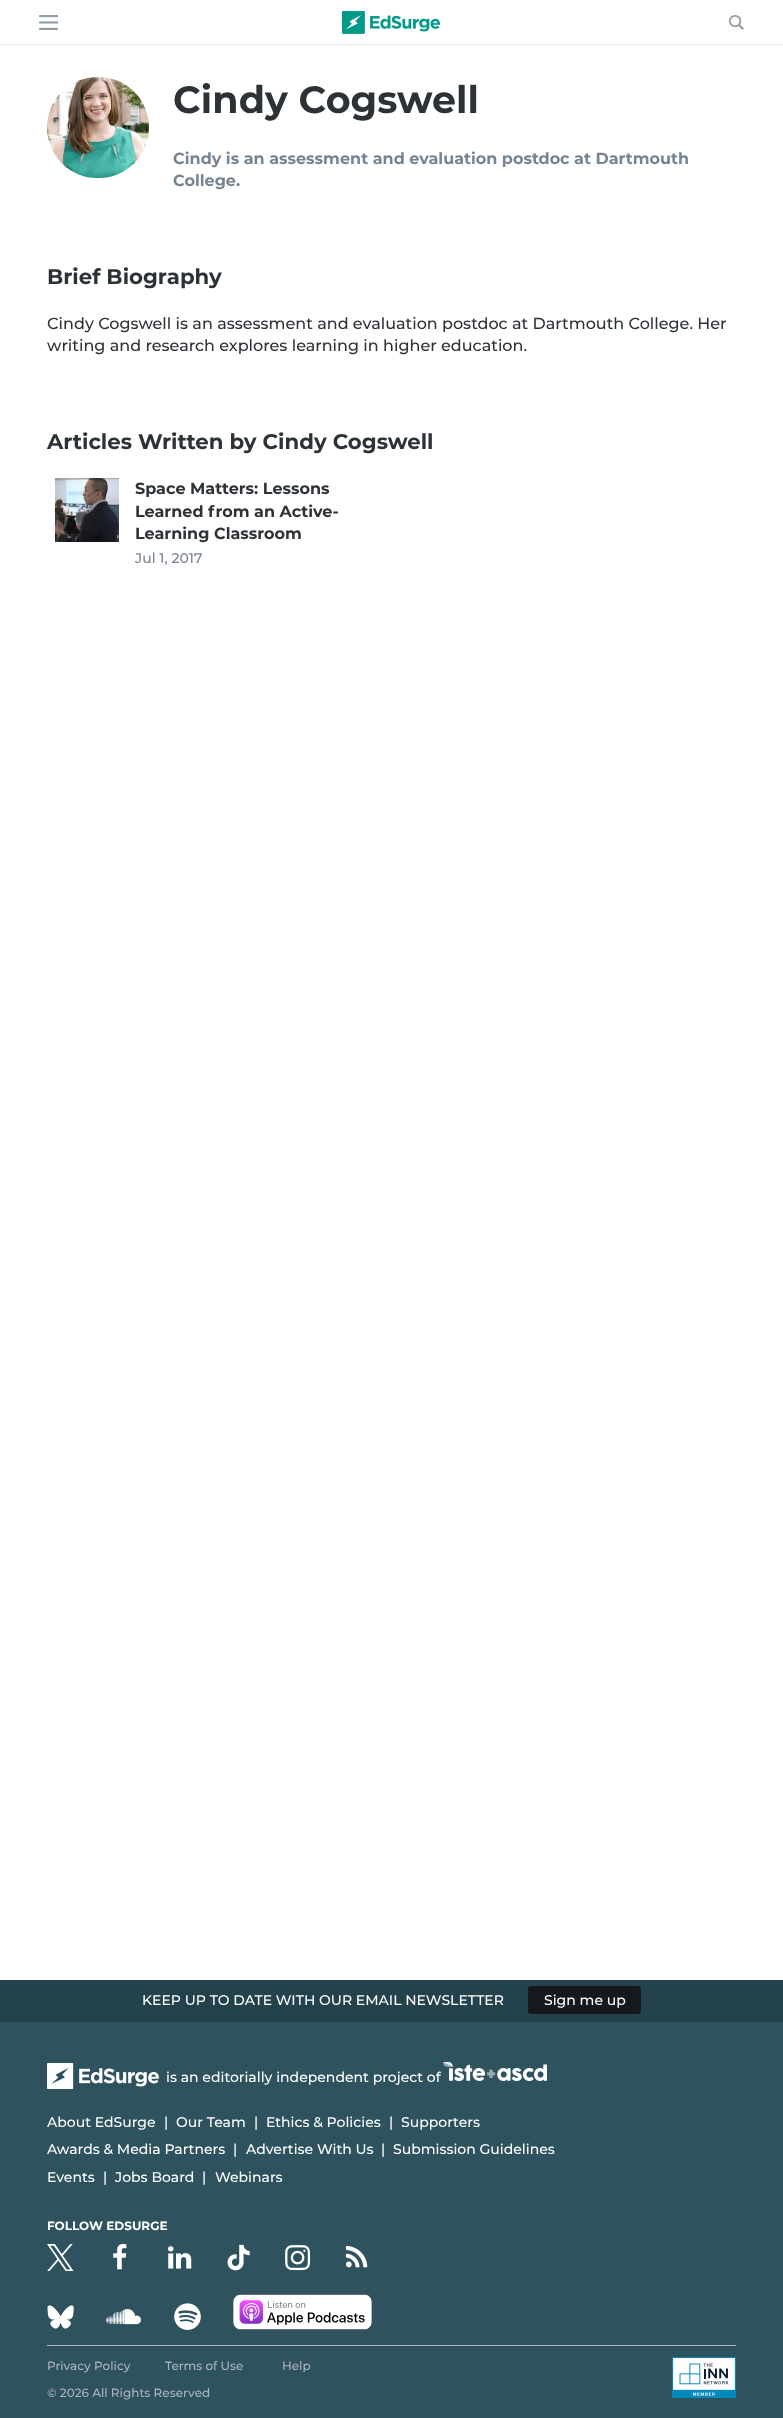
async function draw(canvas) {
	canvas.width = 783;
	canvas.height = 2418;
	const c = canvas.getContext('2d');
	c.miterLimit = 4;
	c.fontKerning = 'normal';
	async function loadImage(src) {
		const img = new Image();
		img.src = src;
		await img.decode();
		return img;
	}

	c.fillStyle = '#fff';
	c.fillRect(0, 0, 783, 2418);
	c.fillStyle = '#e4e6e9';
	c.fillRect(0, 44, 783, 1);
	c.drawImage(await loadImage('img1.png'), 39, 15, 19, 15);
	c.drawImage(await loadImage('img2.png'), 342, 11, 98, 23);
	c.drawImage(await loadImage('img3.png'), 729, 15, 15, 15);
	c.drawImage(await loadImage('img4.png'), 47, 77, 102, 101);
	c.font = 'bold 38px Montserrat';
	c.fillStyle = '#2d3237';
	c.fillText('Cindy Cogswell', 173, 113);
	c.font = 'bold 16px Montserrat';
	c.fillStyle = '#768492';
	c.fillText('Cindy is an assessment and evaluation postdoc at Dartmouth', 173, 164);
	c.fillText('College.', 173, 186);
	c.font = 'bold 21.25px Montserrat';
	c.fillStyle = '#2d3237';
	c.fillText('Brief Biography', 47, 284);
	c.font = '500 16px Montserrat';
	c.fillText('Cindy Cogswell is an assessment and evaluation postdoc at Dartmouth College. Her', 47, 329);
	c.fillText('writing and research explores learning in higher education.', 47, 351);
	c.font = 'bold 21.25px Montserrat';
	c.fillText('Articles Written by Cindy Cogswell', 47, 449);
	c.drawImage(await loadImage('img5.png'), 55, 478, 64, 64);
	c.font = 'bold 16px Montserrat';
	for (const [text, x, y] of [
		['Space Matters: Lessons', 135, 494],
		['Learned from an Active-', 135, 517],
		['Learning Classroom', 135, 539],
	]) {
		c.fillText(text, x, y);
	}
	c.font = '500 14px Montserrat';
	c.fillStyle = '#768492';
	c.fillText('Jul 1, 2017', 135, 563);
	c.fillStyle = '#24424b';
	c.fillRect(0, 1980, 783, 42);
	c.fillStyle = '#fff';
	c.fillText('KEEP UP TO DATE WITH OUR EMAIL NEWSLETTER', 142, 2005);
	c.fillStyle = '#16191b';
	c.beginPath();
	c.roundRect(528, 1986, 113, 28, 3);
	c.fill();
	c.fillStyle = '#fff';
	c.fillText('Sign me up', 544, 2005);
	c.fillStyle = '#2e535e';
	c.fillRect(0, 2022, 783, 396);
	c.drawImage(await loadImage('img6.png'), 47, 2063, 112, 26);
	c.fillStyle = '#fff';
	c.fillText('is an editorially independent project of', 166, 2082);
	c.drawImage(await loadImage('img7.png'), 443, 2062, 104, 20);
	for (const [text, x, y] of [
		['About EdSurge', 47, 2127],
		['|', 164, 2127],
		['Our Team', 176, 2127],
		['|', 254, 2127],
		['Ethics & Policies', 266, 2127],
		['|', 389, 2127],
		['Supporters', 401, 2127],
		['Awards & Media Partners', 47, 2154],
		['|', 233, 2154],
		['Advertise With Us', 246, 2154],
		['|', 381, 2154],
		['Submission Guidelines', 393, 2154],
		['Events', 47, 2182],
		['|', 103, 2182],
		['Jobs Board', 115, 2182],
		['|', 202, 2182],
		['Webinars', 215, 2182],
	]) {
		c.fillText(text, x, y);
	}
	c.font = 'bold 12px Montserrat';
	c.fillText('FOLLOW EDSURGE', 47, 2230);
	c.drawImage(await loadImage('img8.png'), 47, 2244, 27, 27);
	c.drawImage(await loadImage('img9.png'), 113, 2244, 14, 26);
	c.drawImage(await loadImage('img10.png'), 168, 2246, 24, 23);
	c.drawImage(await loadImage('img11.png'), 227, 2244, 23, 27);
	c.drawImage(await loadImage('img12.png'), 285, 2245, 26, 26);
	c.drawImage(await loadImage('img13.png'), 345, 2246, 23, 22);
	c.drawImage(await loadImage('img14.png'), 47, 2305, 27, 24);
	c.drawImage(await loadImage('img15.png'), 106, 2309, 35, 16);
	c.drawImage(await loadImage('img16.png'), 174, 2303, 27, 27);
	c.drawImage(await loadImage('img17.png'), 233, 2294, 139, 36);
	c.fillStyle = '#adb5be';
	c.fillRect(47, 2345, 689, 1);
	c.font = '500 12px Montserrat';
	for (const [text, x, y] of [
		['Privacy Policy', 47, 2370],
		['Terms of Use', 165, 2370],
		['Help', 282, 2370],
		['© 2026 All Rights Reserved', 47, 2397],
	]) {
		c.fillText(text, x, y);
	}
	c.drawImage(await loadImage('img18.png'), 672, 2357, 64, 41);
}

draw(document.querySelector('canvas'));
